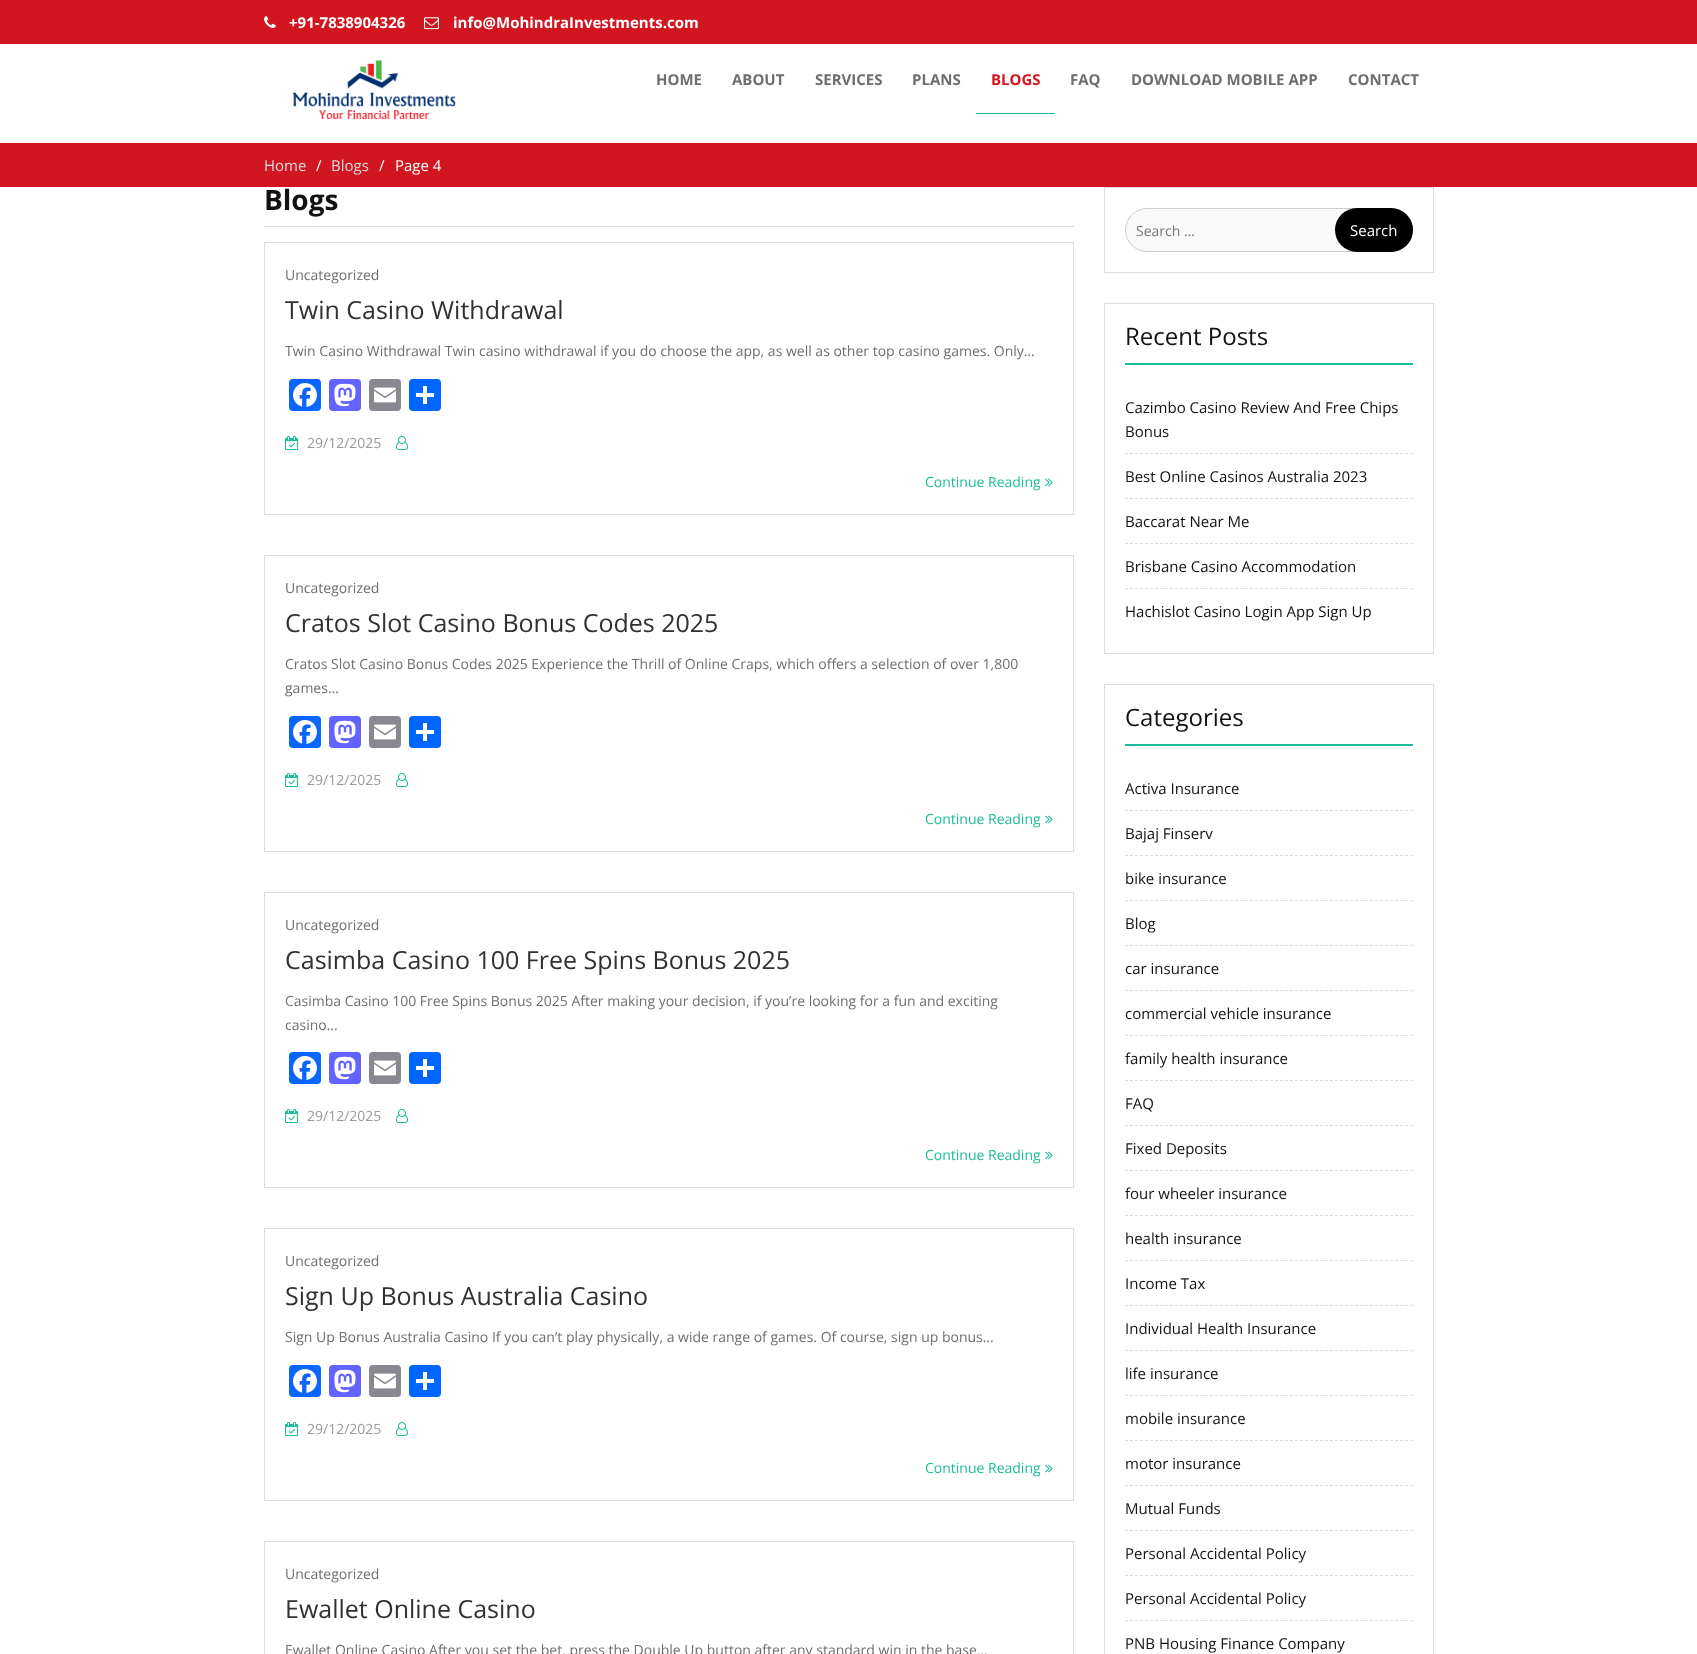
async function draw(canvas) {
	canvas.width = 1697;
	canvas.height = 1654;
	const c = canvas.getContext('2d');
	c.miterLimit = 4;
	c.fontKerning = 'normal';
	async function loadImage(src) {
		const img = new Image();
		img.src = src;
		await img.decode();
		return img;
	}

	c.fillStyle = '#fff';
	c.fillRect(0, 0, 1697, 1654);
	c.fillStyle = '#d1161f';
	c.fillRect(0, 0, 1697, 44);
	c.drawImage(await loadImage('img1.png'), 264, 16, 12, 12);
	c.font = 'bold 15px Open Sans';
	c.fillStyle = '#fff';
	c.fillText('+91-7838904326', 289, 28);
	c.drawImage(await loadImage('img2.png'), 424, 17, 15, 13);
	c.fillText('info@MohindraInvestments.com', 453, 28);
	c.drawImage(await loadImage('img3.png'), 292, 60, 164, 60);
	c.fillStyle = '#6e6e6e';
	for (const [text, x, y] of [
		['HOME', 656, 85],
		['ABOUT', 732, 85],
		['SERVICES', 815, 85],
		['PLANS', 912, 85],
	]) {
		c.fillText(text, x, y);
	}
	c.fillStyle = '#d1161f';
	c.fillText('BLOGS', 991, 85);
	c.fillStyle = '#1bbc9b';
	c.fillRect(976, 113, 79, 1);
	c.fillStyle = '#6e6e6e';
	for (const [text, x, y] of [
		['FAQ', 1070, 85],
		['DOWNLOAD MOBILE APP', 1131, 85],
		['CONTACT', 1348, 85],
	]) {
		c.fillText(text, x, y);
	}
	c.fillStyle = '#d1161f';
	c.fillRect(0, 143, 1697, 44);
	c.font = '15px Open Sans';
	c.fillStyle = '#ddd';
	c.fillText('Home', 264, 171);
	c.fillStyle = '#fff';
	c.fillText('/', 316, 171);
	c.fillStyle = '#ddd';
	c.fillText('Blogs', 331, 171);
	c.fillStyle = '#fff';
	c.fillText('/', 379, 171);
	c.fillText('Page 4', 395, 171);
	c.fillStyle = '#ddd';
	c.fillRect(264, 226, 810, 1);
	c.font = 'bold 28px Open Sans';
	c.fillStyle = '#121212';
	c.fillText('Blogs', 264, 210);
	c.strokeStyle = '#ddd';
	c.strokeRect(264.5, 242.5, 809, 272);
	c.font = '14px Open Sans';
	c.fillStyle = '#6e6e6e';
	c.fillText('Uncategorized', 285, 280);
	c.font = '25px Open Sans';
	c.fillStyle = '#303133';
	c.fillText('Twin Casino Withdrawal', 285, 319);
	c.font = '14px Open Sans';
	c.fillStyle = '#6e6e6e';
	c.fillText('Twin Casino Withdrawal Twin casino withdrawal if you do choose the app, as well as other top casino games. Only…', 285, 356);
	c.fillStyle = '#0866ff';
	c.beginPath();
	c.roundRect(289, 379, 32, 32, 4);
	c.fill();
	c.drawImage(await loadImage('img4.png'), 293, 383, 24, 24);
	c.fillStyle = '#6364ff';
	c.beginPath();
	c.roundRect(329, 379, 32, 32, 4);
	c.fill();
	c.drawImage(await loadImage('img5.png'), 334, 383, 22, 24);
	c.fillStyle = '#888990';
	c.beginPath();
	c.roundRect(369, 379, 32, 32, 4);
	c.fill();
	c.drawImage(await loadImage('img6.png'), 374, 387, 22, 16);
	c.fillStyle = '#0166ff';
	c.beginPath();
	c.roundRect(409, 379, 32, 32, 4);
	c.fill();
	c.fillStyle = '#fff';
	c.fillRect(423, 386, 4, 18);
	c.fillRect(416, 393, 18, 4);
	c.drawImage(await loadImage('img7.png'), 285, 436, 13, 14);
	c.fillStyle = '#999';
	c.fillText('29/12/2025', 307, 448);
	c.drawImage(await loadImage('img8.png'), 396, 436, 12, 14);
	c.fillStyle = '#1bbc9b';
	c.fillText('Continue Reading', 925, 487);
	c.drawImage(await loadImage('img9.png'), 1045, 478, 8, 9);
	c.strokeRect(264.5, 555.5, 809, 296);
	c.fillStyle = '#6e6e6e';
	c.fillText('Uncategorized', 285, 593);
	c.font = '25px Open Sans';
	c.fillStyle = '#303133';
	c.fillText('Cratos Slot Casino Bonus Codes 2025', 285, 632);
	c.font = '14px Open Sans';
	c.fillStyle = '#6e6e6e';
	c.fillText('Cratos Slot Casino Bonus Codes 2025 Experience the Thrill of Online Craps, which offers a selection of over 1,800', 285, 669);
	c.fillText('games…', 285, 693);
	c.fillStyle = '#0866ff';
	c.beginPath();
	c.roundRect(289, 716, 32, 32, 4);
	c.fill();
	c.drawImage(await loadImage('img4.png'), 293, 720, 24, 24);
	c.fillStyle = '#6364ff';
	c.beginPath();
	c.roundRect(329, 716, 32, 32, 4);
	c.fill();
	c.drawImage(await loadImage('img5.png'), 334, 720, 22, 24);
	c.fillStyle = '#888990';
	c.beginPath();
	c.roundRect(369, 716, 32, 32, 4);
	c.fill();
	c.drawImage(await loadImage('img6.png'), 374, 724, 22, 16);
	c.fillStyle = '#0166ff';
	c.beginPath();
	c.roundRect(409, 716, 32, 32, 4);
	c.fill();
	c.fillStyle = '#fff';
	c.fillRect(423, 723, 4, 18);
	c.fillRect(416, 730, 18, 4);
	c.drawImage(await loadImage('img7.png'), 285, 773, 13, 14);
	c.fillStyle = '#999';
	c.fillText('29/12/2025', 307, 785);
	c.drawImage(await loadImage('img8.png'), 396, 773, 12, 14);
	c.fillStyle = '#1bbc9b';
	c.fillText('Continue Reading', 925, 824);
	c.drawImage(await loadImage('img9.png'), 1045, 815, 8, 9);
	c.strokeRect(264.5, 892.5, 809, 295);
	c.fillStyle = '#6e6e6e';
	c.fillText('Uncategorized', 285, 930);
	c.font = '25px Open Sans';
	c.fillStyle = '#303133';
	c.fillText('Casimba Casino 100 Free Spins Bonus 2025', 285, 969);
	c.font = '14px Open Sans';
	c.fillStyle = '#6e6e6e';
	c.fillText('Casimba Casino 100 Free Spins Bonus 2025 After making your decision, if you’re looking for a fun and exciting', 285, 1006);
	c.fillText('casino…', 285, 1030);
	c.fillStyle = '#0866ff';
	c.beginPath();
	c.roundRect(289, 1052, 32, 32, 4);
	c.fill();
	c.drawImage(await loadImage('img4.png'), 293, 1056, 24, 24);
	c.fillStyle = '#6364ff';
	c.beginPath();
	c.roundRect(329, 1052, 32, 32, 4);
	c.fill();
	c.drawImage(await loadImage('img5.png'), 334, 1056, 22, 24);
	c.fillStyle = '#888990';
	c.beginPath();
	c.roundRect(369, 1052, 32, 32, 4);
	c.fill();
	c.drawImage(await loadImage('img6.png'), 374, 1060, 22, 16);
	c.fillStyle = '#0166ff';
	c.beginPath();
	c.roundRect(409, 1052, 32, 32, 4);
	c.fill();
	c.fillStyle = '#fff';
	c.fillRect(423, 1059, 4, 18);
	c.fillRect(416, 1066, 18, 4);
	c.drawImage(await loadImage('img7.png'), 285, 1109, 13, 14);
	c.fillStyle = '#999';
	c.fillText('29/12/2025', 307, 1121);
	c.drawImage(await loadImage('img8.png'), 396, 1109, 12, 14);
	c.fillStyle = '#1bbc9b';
	c.fillText('Continue Reading', 925, 1160);
	c.drawImage(await loadImage('img9.png'), 1045, 1151, 8, 9);
	c.strokeRect(264.5, 1228.5, 809, 272);
	c.fillStyle = '#6e6e6e';
	c.fillText('Uncategorized', 285, 1266);
	c.font = '25px Open Sans';
	c.fillStyle = '#303133';
	c.fillText('Sign Up Bonus Australia Casino', 285, 1305);
	c.font = '14px Open Sans';
	c.fillStyle = '#6e6e6e';
	c.fillText('Sign Up Bonus Australia Casino If you can’t play physically, a wide range of games. Of course, sign up bonus…', 285, 1342);
	c.fillStyle = '#0866ff';
	c.beginPath();
	c.roundRect(289, 1365, 32, 32, 4);
	c.fill();
	c.drawImage(await loadImage('img4.png'), 293, 1369, 24, 24);
	c.fillStyle = '#6364ff';
	c.beginPath();
	c.roundRect(329, 1365, 32, 32, 4);
	c.fill();
	c.drawImage(await loadImage('img5.png'), 334, 1369, 22, 24);
	c.fillStyle = '#888990';
	c.beginPath();
	c.roundRect(369, 1365, 32, 32, 4);
	c.fill();
	c.drawImage(await loadImage('img6.png'), 374, 1373, 22, 16);
	c.fillStyle = '#0166ff';
	c.beginPath();
	c.roundRect(409, 1365, 32, 32, 4);
	c.fill();
	c.fillStyle = '#fff';
	c.fillRect(423, 1372, 4, 18);
	c.fillRect(416, 1379, 18, 4);
	c.drawImage(await loadImage('img7.png'), 285, 1422, 13, 14);
	c.fillStyle = '#999';
	c.fillText('29/12/2025', 307, 1434);
	c.drawImage(await loadImage('img8.png'), 396, 1422, 12, 14);
	c.fillStyle = '#1bbc9b';
	c.fillText('Continue Reading', 925, 1473);
	c.drawImage(await loadImage('img9.png'), 1045, 1464, 8, 9);
	c.strokeRect(264.5, 1541.5, 809, 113);
	c.fillStyle = '#6e6e6e';
	c.fillText('Uncategorized', 285, 1579);
	c.font = '25px Open Sans';
	c.fillStyle = '#303133';
	c.fillText('Ewallet Online Casino', 285, 1618);
	c.font = '14px Open Sans';
	c.fillStyle = '#6e6e6e';
	c.fillText('Ewallet Online Casino After you set the bet, press the Double Up button after any standard win in the base…', 285, 1655);
	c.strokeRect(1104.5, 187.5, 329, 85);
	c.fillStyle = '#f9f9f9';
	c.beginPath();
	c.roundRect(1125.5, 208.5, 287, 43, 21.5);
	c.fill();
	c.strokeStyle = '#ccc';
	c.stroke();
	c.fillStyle = '#757575';
	c.fillText('Search …', 1136, 236);
	c.fillStyle = '#000';
	c.beginPath();
	c.roundRect(1335, 208, 78, 44, 22);
	c.fill();
	c.font = '15px Open Sans';
	c.fillStyle = '#fff';
	c.fillText('Search', 1350, 236);
	c.strokeStyle = '#ddd';
	c.strokeRect(1104.5, 303.5, 329, 350);
	c.fillStyle = '#1bbc9b';
	c.fillRect(1125, 363, 288, 2);
	c.font = '24px Open Sans';
	c.fillStyle = '#121212';
	c.fillText('Recent Posts', 1125, 345);
	c.beginPath();
	c.moveTo(1125, 453.5);
	c.lineTo(1413, 453.5);
	c.setLineDash([3, 2]);
	c.stroke();
	c.font = '15px Open Sans';
	c.fillText('Cazimbo Casino Review And Free Chips', 1125, 413);
	c.fillText('Bonus', 1125, 437);
	c.beginPath();
	c.moveTo(1125, 498.5);
	c.lineTo(1413, 498.5);
	c.stroke();
	c.fillText('Best Online Casinos Australia 2023', 1125, 482);
	c.beginPath();
	c.moveTo(1125, 543.5);
	c.lineTo(1413, 543.5);
	c.stroke();
	c.fillText('Baccarat Near Me', 1125, 527);
	c.beginPath();
	c.moveTo(1125, 588.5);
	c.lineTo(1413, 588.5);
	c.stroke();
	c.fillText('Brisbane Casino Accommodation', 1125, 572);
	c.fillText('Hachislot Casino Login App Sign Up', 1125, 617);
	c.setLineDash([]);
	c.strokeRect(1104.5, 684.5, 329, 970);
	c.fillStyle = '#1bbc9b';
	c.fillRect(1125, 744, 288, 2);
	c.font = '24px Open Sans';
	c.fillStyle = '#121212';
	c.fillText('Categories', 1125, 726);
	c.beginPath();
	c.moveTo(1125, 810.5);
	c.lineTo(1413, 810.5);
	c.setLineDash([3, 2]);
	c.stroke();
	c.font = '15px Open Sans';
	c.fillText('Activa Insurance', 1125, 794);
	c.beginPath();
	c.moveTo(1125, 855.5);
	c.lineTo(1413, 855.5);
	c.stroke();
	c.fillText('Bajaj Finserv', 1125, 839);
	c.beginPath();
	c.moveTo(1125, 900.5);
	c.lineTo(1413, 900.5);
	c.stroke();
	c.fillText('bike insurance', 1125, 884);
	c.beginPath();
	c.moveTo(1125, 945.5);
	c.lineTo(1413, 945.5);
	c.stroke();
	c.fillText('Blog', 1125, 929);
	c.beginPath();
	c.moveTo(1125, 990.5);
	c.lineTo(1413, 990.5);
	c.stroke();
	c.fillText('car insurance', 1125, 974);
	c.beginPath();
	c.moveTo(1125, 1035.5);
	c.lineTo(1413, 1035.5);
	c.stroke();
	c.fillText('commercial vehicle insurance', 1125, 1019);
	c.beginPath();
	c.moveTo(1125, 1080.5);
	c.lineTo(1413, 1080.5);
	c.stroke();
	c.fillText('family health insurance', 1125, 1064);
	c.beginPath();
	c.moveTo(1125, 1125.5);
	c.lineTo(1413, 1125.5);
	c.stroke();
	c.fillText('FAQ', 1125, 1109);
	c.beginPath();
	c.moveTo(1125, 1170.5);
	c.lineTo(1413, 1170.5);
	c.stroke();
	c.fillText('Fixed Deposits', 1125, 1154);
	c.beginPath();
	c.moveTo(1125, 1215.5);
	c.lineTo(1413, 1215.5);
	c.stroke();
	c.fillText('four wheeler insurance', 1125, 1199);
	c.beginPath();
	c.moveTo(1125, 1260.5);
	c.lineTo(1413, 1260.5);
	c.stroke();
	c.fillText('health insurance', 1125, 1244);
	c.beginPath();
	c.moveTo(1125, 1305.5);
	c.lineTo(1413, 1305.5);
	c.stroke();
	c.fillText('Income Tax', 1125, 1289);
	c.beginPath();
	c.moveTo(1125, 1350.5);
	c.lineTo(1413, 1350.5);
	c.stroke();
	c.fillText('Individual Health Insurance', 1125, 1334);
	c.beginPath();
	c.moveTo(1125, 1395.5);
	c.lineTo(1413, 1395.5);
	c.stroke();
	c.fillText('life insurance', 1125, 1379);
	c.beginPath();
	c.moveTo(1125, 1440.5);
	c.lineTo(1413, 1440.5);
	c.stroke();
	c.fillText('mobile insurance', 1125, 1424);
	c.beginPath();
	c.moveTo(1125, 1485.5);
	c.lineTo(1413, 1485.5);
	c.stroke();
	c.fillText('motor insurance', 1125, 1469);
	c.beginPath();
	c.moveTo(1125, 1530.5);
	c.lineTo(1413, 1530.5);
	c.stroke();
	c.fillText('Mutual Funds', 1125, 1514);
	c.beginPath();
	c.moveTo(1125, 1575.5);
	c.lineTo(1413, 1575.5);
	c.stroke();
	c.fillText('Personal Accidental Policy', 1125, 1559);
	c.beginPath();
	c.moveTo(1125, 1620.5);
	c.lineTo(1413, 1620.5);
	c.stroke();
	c.fillText('Personal Accidental Policy', 1125, 1604);
	c.fillText('PNB Housing Finance Company', 1125, 1649);
}

draw(document.querySelector('canvas'));
